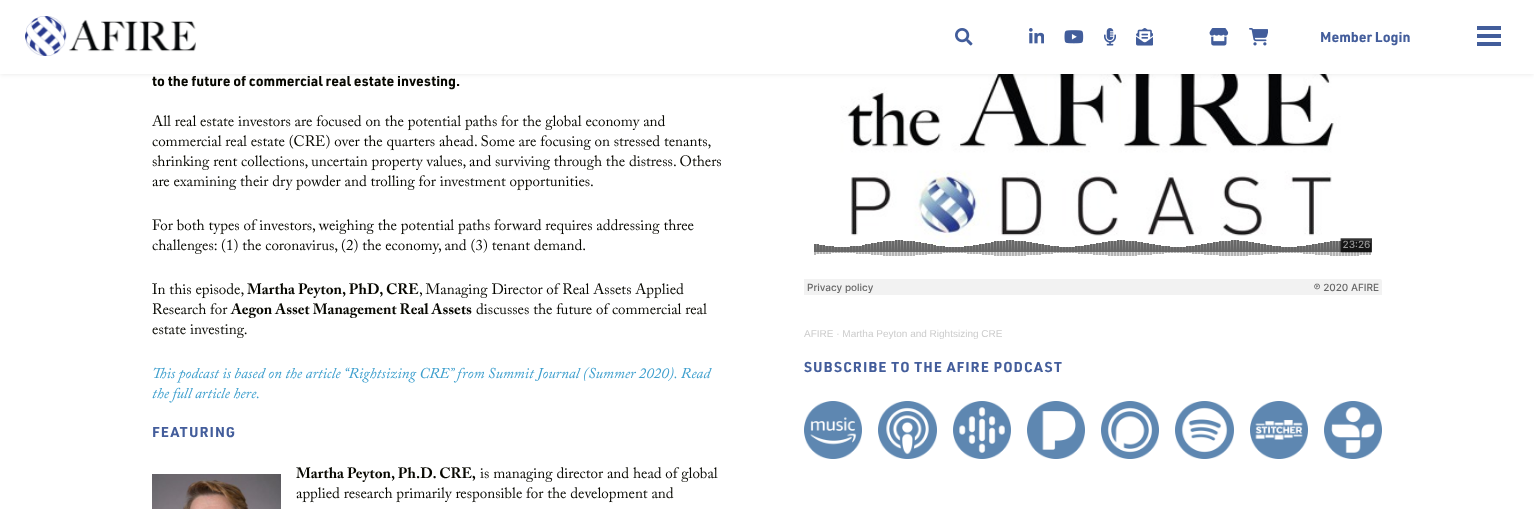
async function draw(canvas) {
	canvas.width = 1534;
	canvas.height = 509;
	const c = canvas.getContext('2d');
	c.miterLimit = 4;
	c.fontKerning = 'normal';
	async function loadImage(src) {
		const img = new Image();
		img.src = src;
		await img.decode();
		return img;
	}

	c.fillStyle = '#fff';
	c.fillRect(0, 0, 1534, 509);
	c.drawImage(await loadImage('img10.png'), 804, 74, 578, 221);
	c.fillStyle = '#0000001a';
	c.filter = 'blur(2.5px)';
	c.beginPath();
	c.rect(0, 0, 1534, 74);
	c.fill();
	c.filter = 'none';
	c.fillStyle = '#fff';
	c.fillRect(0, 0, 1534, 74);
	c.drawImage(await loadImage('img1.png'), 25, 16, 171, 40);
	c.drawImage(await loadImage('img2.png'), 955, 28, 18, 18);
	c.drawImage(await loadImage('img3.png'), 1029, 28, 15, 16);
	c.drawImage(await loadImage('img4.png'), 1064, 30, 20, 14);
	c.drawImage(await loadImage('img5.png'), 1104, 28, 12, 18);
	c.drawImage(await loadImage('img6.png'), 1136, 28, 17, 18);
	c.drawImage(await loadImage('img7.png'), 1209, 28, 20, 18);
	c.drawImage(await loadImage('img8.png'), 1249, 28, 19, 18);
	c.font = 'bold 14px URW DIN';
	c.fillStyle = '#435d9b';
	c.fillText('Member Login', 1320, 42);
	for (const [x, y, w, h, color] of [
		[1477, 26, 24, 4, '#425d9b'],
		[1477, 34, 24, 4, '#425d9b'],
		[1477, 42, 24, 4, '#425d9b'],
	]) {
		c.fillStyle = color;
		c.fillRect(x, y, w, h);
	}
	c.fillStyle = '#070700';
	c.fillText('to the future of commercial real estate investing.', 152, 86);
	c.font = '15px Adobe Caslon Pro';
	for (const [text, x, y] of [
		['All real estate investors are focused on the potential paths for the global economy and', 152, 126],
		['commercial real estate (CRE) over the quarters ahead. Some are focusing on stressed tenants,', 152, 146],
		['shrinking rent collections, uncertain property values, and surviving through the distress. Others', 152, 166],
		['are examining their dry powder and trolling for investment opportunities.', 152, 186],
		['For both types of investors, weighing the potential paths forward requires addressing three', 152, 230],
		['challenges: (1) the coronavirus, (2) the economy, and (3) tenant demand.', 152, 250],
		['In this episode,', 152, 294],
	]) {
		c.fillText(text, x, y);
	}
	c.font = 'bold 15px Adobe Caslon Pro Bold';
	c.fillText('Martha Peyton, PhD, CRE', 247, 294);
	c.font = '15px Adobe Caslon Pro';
	c.fillText(', Managing Director of Real Assets Applied', 419, 294);
	c.fillText('Research for', 152, 314);
	c.font = 'bold 15px Adobe Caslon Pro Bold';
	c.fillText('Aegon Asset Management Real Assets', 231, 314);
	c.font = '15px Adobe Caslon Pro';
	c.fillText('discusses the future of commercial real', 476, 314);
	c.fillText('estate investing.', 152, 334);
	c.font = 'italic 15px Adobe Caslon Pro';
	c.fillStyle = '#3c9ecd';
	c.fillText('This podcast is based on the article “Rightsizing CRE” from Summit Journal (Summer 2020). Read', 152, 378);
	c.fillText('the full article here.', 152, 398);
	c.letterSpacing = '1px';
	c.font = 'bold 14px URW DIN';
	c.fillStyle = '#435d9b';
	c.fillText('FEATURING', 152, 437);
	c.drawImage(await loadImage('img9.png'), 152, 474, 129, 35);
	c.letterSpacing = '0px';
	c.font = 'bold 15px Adobe Caslon Pro Bold';
	c.fillStyle = '#070700';
	c.fillText('Martha Peyton, Ph.D. CRE,', 296, 478);
	c.font = '15px Adobe Caslon Pro';
	c.fillText('is managing director and head of global', 480, 478);
	c.fillText('applied research primarily responsible for the development and', 296, 498);
	c.font = '10px Liberation Sans';
	c.fillStyle = '#ccc';
	c.fillText('AFIRE · Martha Peyton and Rightsizing CRE', 804, 337);
	c.letterSpacing = '1px';
	c.font = 'bold 14px URW DIN';
	c.fillStyle = '#435d9b';
	c.fillText('SUBSCRIBE TO THE AFIRE PODCAST', 804, 372);
	c.drawImage(await loadImage('img11.png'), 804, 401, 58, 58);
	c.drawImage(await loadImage('img12.png'), 878, 401, 59, 58);
	c.drawImage(await loadImage('img13.png'), 953, 401, 58, 58);
	c.drawImage(await loadImage('img14.png'), 1027, 401, 58, 58);
	c.drawImage(await loadImage('img15.png'), 1101, 401, 58, 58);
	c.drawImage(await loadImage('img16.png'), 1175, 401, 59, 58);
	c.drawImage(await loadImage('img17.png'), 1250, 401, 58, 58);
	c.drawImage(await loadImage('img18.png'), 1324, 401, 58, 58);
}

draw(document.querySelector('canvas'));
